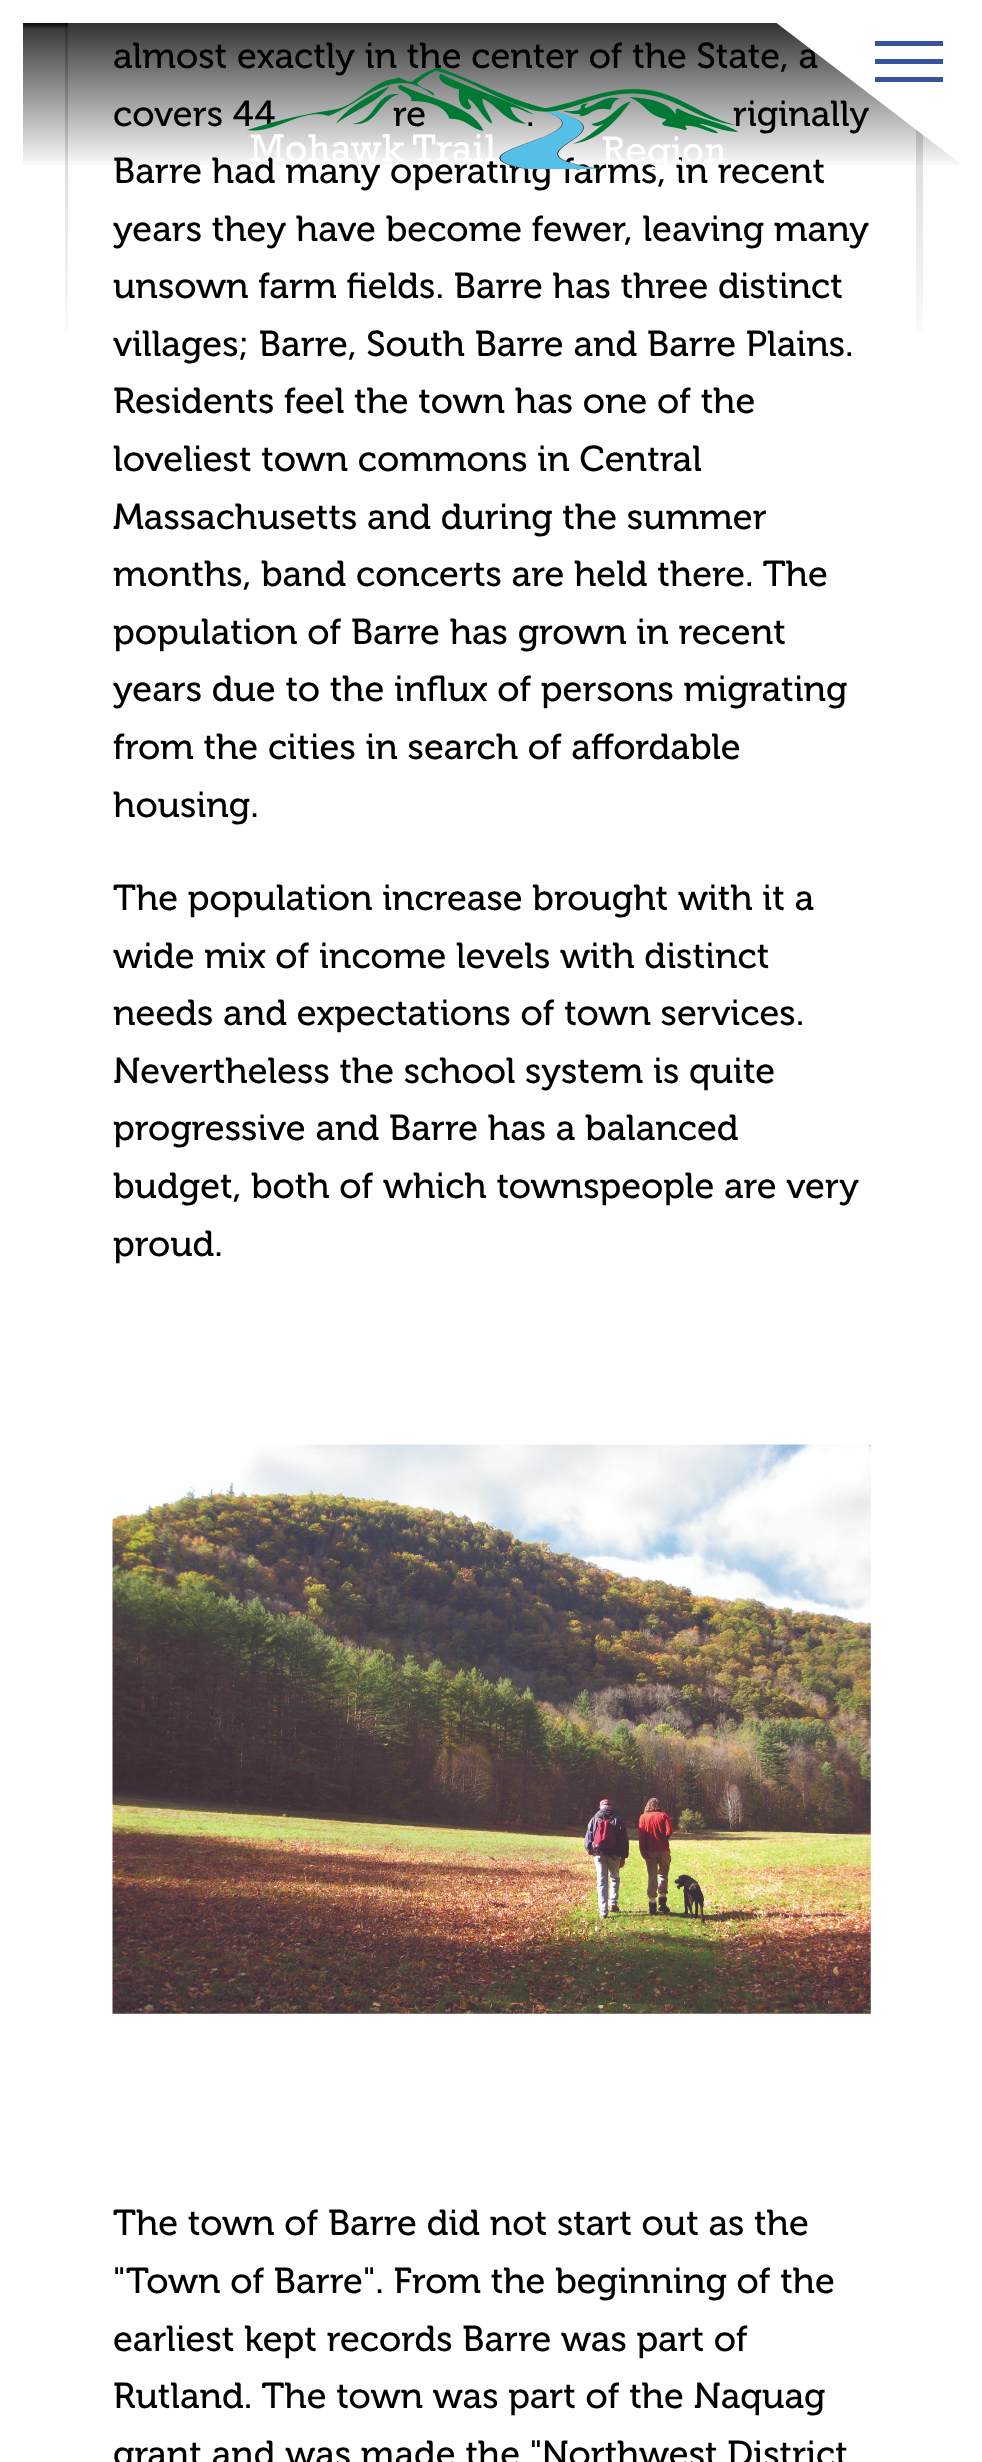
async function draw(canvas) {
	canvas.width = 982;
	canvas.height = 2462;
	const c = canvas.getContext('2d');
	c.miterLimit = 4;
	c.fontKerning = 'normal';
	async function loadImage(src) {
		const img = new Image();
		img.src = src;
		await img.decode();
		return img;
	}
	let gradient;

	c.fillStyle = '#fff';
	c.fillRect(0, 0, 982, 2462);
	gradient = c.createLinearGradient(492, 29, 492, 23);
	gradient.addColorStop(0, '#00000000');
	gradient.addColorStop(1, '#000000cc');
	c.fillStyle = gradient;
	c.fillRect(23, 23, 45, 6);
	gradient = c.createLinearGradient(493, 367, 493, -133);
	gradient.addColorStop(0, '#00000000');
	gradient.addColorStop(1, '#0000004d');
	c.fillStyle = gradient;
	c.fillRect(65, 23, 858, 308);
	c.fillStyle = '#fff';
	c.fillRect(68, 23, 848, 308);
	c.font = '36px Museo';
	c.fillStyle = '#000';
	for (const [text, x, y] of [
		['almost exactly in the center of the State, a', 113, 68],
		['covers 44', 113, 126],
		['re', 393, 126],
		['.', 526, 126],
		['riginally', 733, 126],
		['Barre had many operating farms, in recent', 113, 183],
	]) {
		c.fillText(text, x, y);
	}
	gradient = c.createLinearGradient(492, 169, 492, 23);
	gradient.addColorStop(0, '#00000000');
	gradient.addColorStop(1, '#000000cc');
	c.fillStyle = gradient;
	c.fillRect(23, 23, 938, 142);
	c.drawImage(await loadImage('img1.png'), 247, 68, 492, 101);
	c.fillStyle = '#fff';
	c.beginPath();
	c.moveTo(961, 18);
	c.lineTo(961, 164);
	c.lineTo(770, 18);
	c.closePath();
	c.fill();
	for (const [x, y, w, h, color] of [
		[875, 41, 68, 5, '#37539e'],
		[875, 59, 68, 5, '#37539e'],
		[875, 77, 68, 5, '#37539e'],
	]) {
		c.fillStyle = color;
		c.fillRect(x, y, w, h);
	}
	c.fillStyle = '#000';
	for (const [text, x, y] of [
		['years they have become fewer, leaving many', 113, 241],
		['unsown farm fields. Barre has three distinct', 113, 298],
		['villages; Barre, South Barre and Barre Plains.', 113, 356],
		['Residents feel the town has one of the', 113, 413],
		['loveliest town commons in Central', 113, 471],
		['Massachusetts and during the summer', 113, 529],
		['months, band concerts are held there. The', 113, 586],
		['population of Barre has grown in recent', 113, 644],
		['years due to the influx of persons migrating', 113, 701],
		['from the cities in search of affordable', 113, 759],
		['housing.', 113, 817],
		['The population increase brought with it a', 113, 910],
		['wide mix of income levels with distinct', 113, 968],
		['needs and expectations of town services.', 113, 1025],
		['Nevertheless the school system is quite', 113, 1083],
		['progressive and Barre has a balanced', 113, 1140],
		['budget, both of which townspeople are very', 113, 1198],
		['proud.', 113, 1256],
	]) {
		c.fillText(text, x, y);
	}
	c.drawImage(await loadImage('img2.png'), 112, 1444, 759, 570);
	for (const [text, x, y] of [
		['The town of Barre did not start out as the', 113, 2235],
		['"Town of Barre". From the beginning of the', 113, 2293],
		['earliest kept records Barre was part of', 113, 2351],
		['Rutland. The town was part of the Naquag', 113, 2408],
		['grant and was made the "Northwest District', 113, 2466],
	]) {
		c.fillText(text, x, y);
	}
}

draw(document.querySelector('canvas'));
